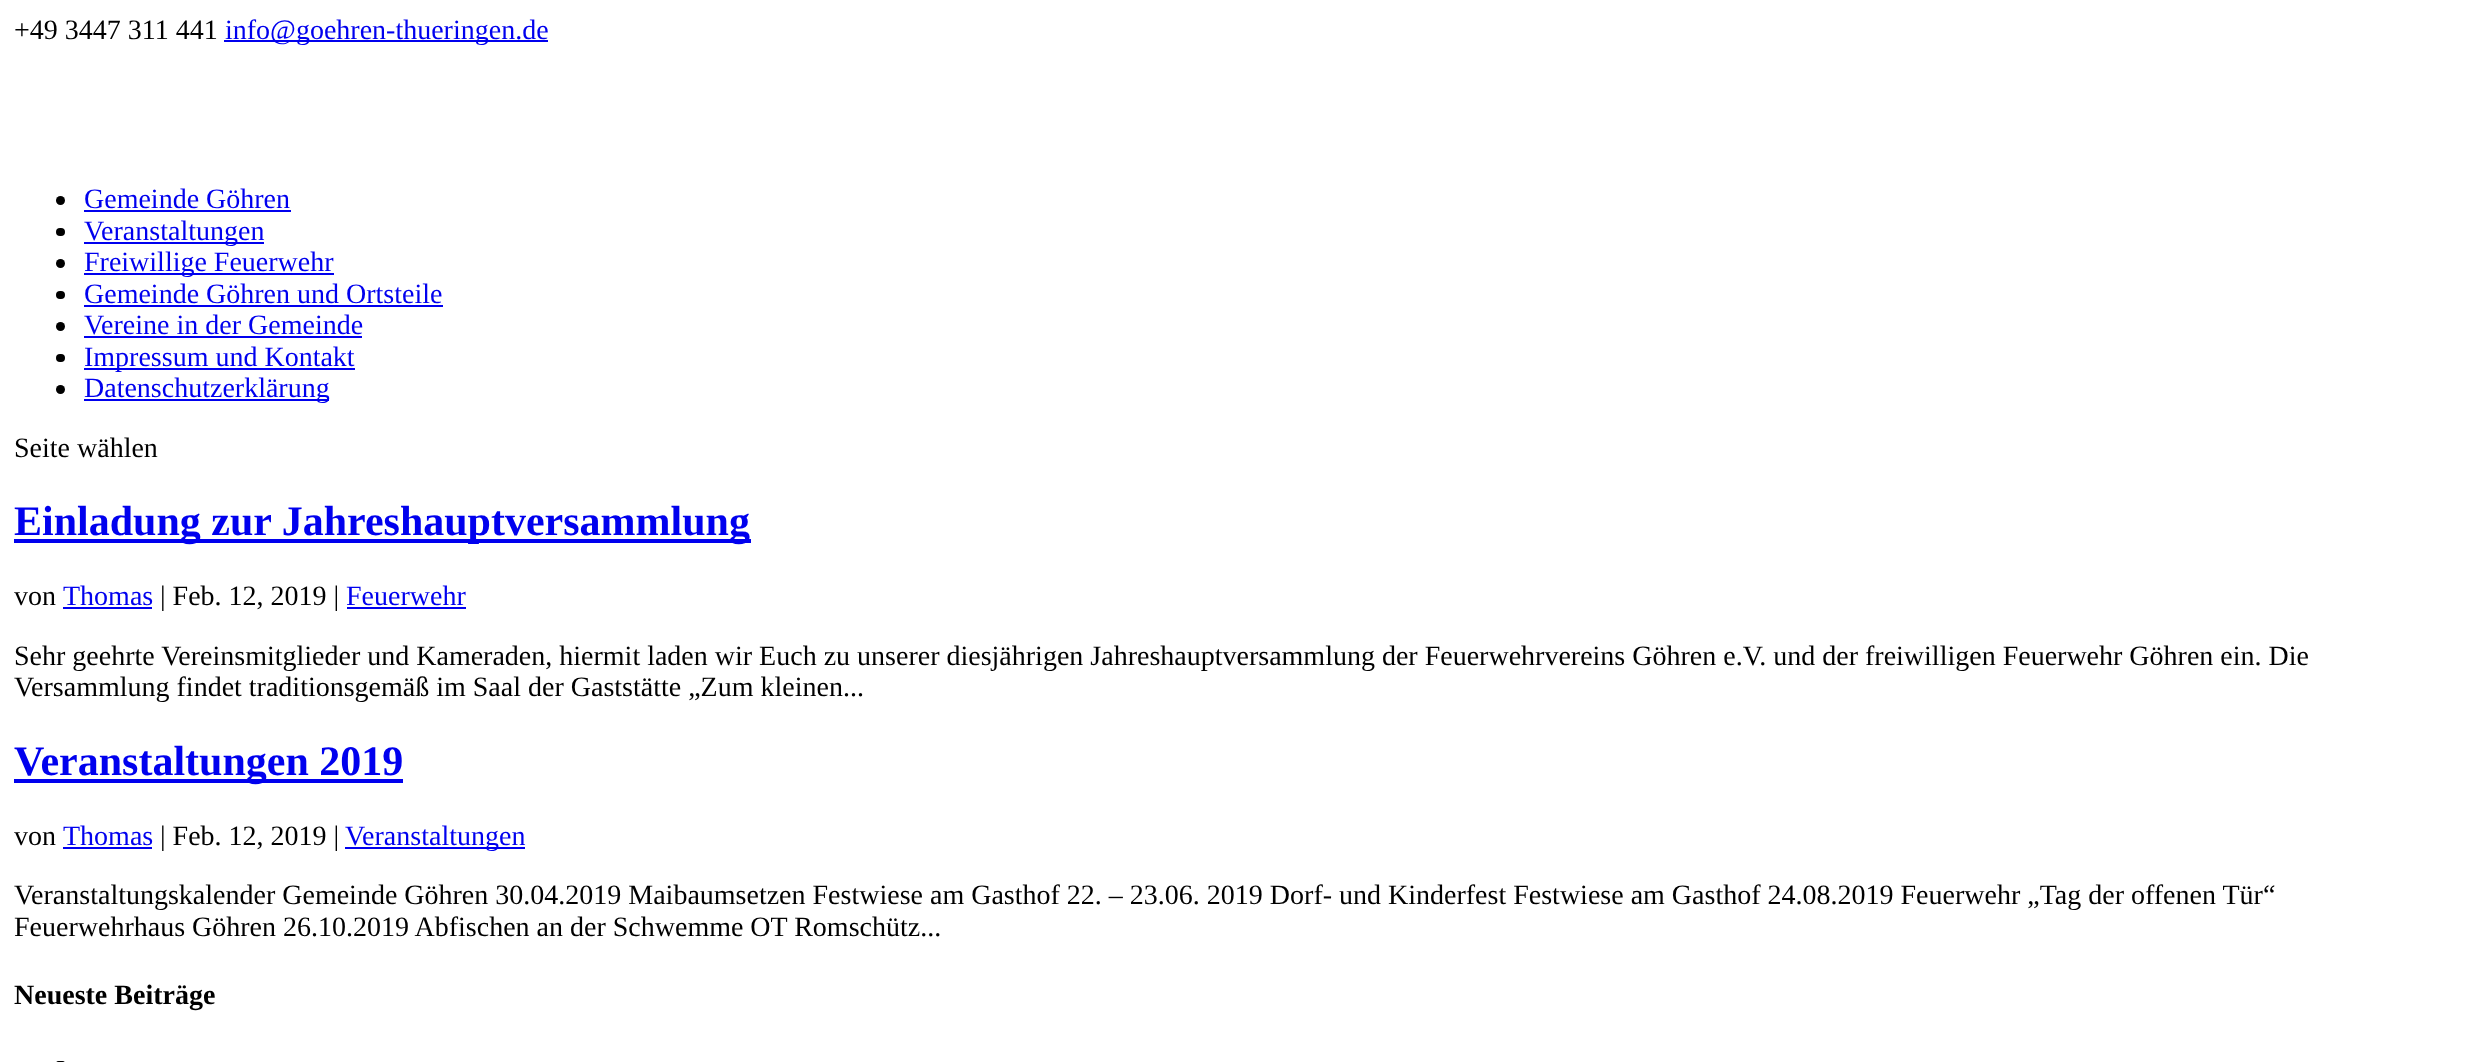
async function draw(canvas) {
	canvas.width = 2465;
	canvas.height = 1062;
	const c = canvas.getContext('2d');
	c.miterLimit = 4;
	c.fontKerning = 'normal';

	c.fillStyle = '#fff';
	c.fillRect(0, 0, 2465, 1062);
	c.font = '28px Liberation Serif';
	c.fillStyle = '#000';
	c.fillText('+49 3447 311 441', 14, 39);
	c.fillStyle = '#00e';
	c.fillRect(224, 40, 324, 2);
	c.fillText('info@goehren-thueringen.de', 225, 39);
	c.fillStyle = '#000';
	c.beginPath();
	c.arc(60.5, 200.5, 4.5, 0, 2 * Math.PI);
	c.fill();
	c.fillStyle = '#00e';
	c.fillText('Gemeinde Göhren', 84, 208);
	c.fillRect(84, 210, 207, 2);
	c.fillStyle = '#000';
	c.beginPath();
	c.roundRect(56, 228, 9, 8, 4);
	c.fill();
	c.fillStyle = '#00e';
	c.fillRect(84, 242, 180, 2);
	c.fillText('Veranstaltungen', 84, 240);
	c.fillStyle = '#000';
	c.beginPath();
	c.arc(60.5, 263.5, 4.5, 0, 2 * Math.PI);
	c.fill();
	c.fillStyle = '#00e';
	c.fillRect(84, 273, 250, 2);
	c.fillText('Freiwillige Feuerwehr', 84, 271);
	c.fillStyle = '#000';
	c.beginPath();
	c.roundRect(56, 291, 9, 8, 4);
	c.fill();
	c.fillStyle = '#00e';
	c.fillText('Gemeinde Göhren und Ortsteile', 84, 303);
	c.fillRect(84, 305, 359, 2);
	c.fillStyle = '#000';
	c.beginPath();
	c.arc(60.5, 326.5, 4.5, 0, 2 * Math.PI);
	c.fill();
	c.fillStyle = '#00e';
	c.fillText('Vereine in der Gemeinde', 84, 334);
	c.fillRect(84, 336, 278, 2);
	c.fillStyle = '#000';
	c.beginPath();
	c.roundRect(56, 354, 9, 8, 4);
	c.fill();
	c.fillStyle = '#00e';
	c.fillRect(84, 368, 271, 2);
	c.fillText('Impressum und Kontakt', 84, 366);
	c.fillStyle = '#000';
	c.beginPath();
	c.arc(60.5, 389.5, 4.5, 0, 2 * Math.PI);
	c.fill();
	c.fillStyle = '#00e';
	c.fillRect(84, 399, 245, 2);
	c.fillText('Datenschutzerklärung', 84, 397);
	c.fillStyle = '#000';
	c.fillText('Seite wählen', 14, 457);
	c.fillStyle = '#00e';
	c.fillRect(14, 539, 737, 4);
	c.font = 'bold 42px Liberation Serif';
	c.fillText('Einladung zur Jahreshauptversammlung', 14, 535);
	c.font = '28px Liberation Serif';
	c.fillStyle = '#000';
	c.fillText('von', 14, 605);
	c.fillStyle = '#00e';
	c.fillText('Thomas', 63, 605);
	c.fillRect(63, 607, 89, 2);
	c.fillStyle = '#000';
	c.fillText('| Feb. 12, 2019 |', 160, 605);
	c.fillStyle = '#00e';
	c.fillText('Feuerwehr', 346, 605);
	c.fillRect(347, 607, 119, 2);
	c.fillStyle = '#000';
	c.fillText('Sehr geehrte Vereinsmitglieder und Kameraden, hiermit laden wir Euch zu unserer diesjährigen Jahreshauptversammlung der Feuerwehrvereins Göhren e.V. und der freiwilligen Feuerwehr Göhren ein. Die', 14, 665);
	c.fillText('Versammlung findet traditionsgemäß im Saal der Gaststätte „Zum kleinen...', 14, 696);
	c.fillStyle = '#00e';
	c.fillRect(14, 779, 389, 4);
	c.font = 'bold 42px Liberation Serif';
	c.fillText('Veranstaltungen 2019', 14, 775);
	c.font = '28px Liberation Serif';
	c.fillStyle = '#000';
	c.fillText('von', 14, 845);
	c.fillStyle = '#00e';
	c.fillText('Thomas', 63, 845);
	c.fillRect(63, 847, 89, 2);
	c.fillStyle = '#000';
	c.fillText('| Feb. 12, 2019 |', 160, 845);
	c.fillStyle = '#00e';
	c.fillRect(345, 847, 180, 2);
	c.fillText('Veranstaltungen', 345, 845);
	c.fillStyle = '#000';
	c.fillText('Veranstaltungskalender Gemeinde Göhren 30.04.2019 Maibaumsetzen Festwiese am Gasthof 22. – 23.06. 2019 Dorf- und Kinderfest Festwiese am Gasthof 24.08.2019 Feuerwehr „Tag der offenen Tür“', 14, 904);
	c.fillText('Feuerwehrhaus Göhren 26.10.2019 Abfischen an der Schwemme OT Romschütz...', 14, 936);
	c.font = 'bold 28px Liberation Serif';
	c.fillText('Neueste Beiträge', 14, 1004);
	c.beginPath();
	c.roundRect(56, 1061, 9, 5, 4);
	c.fill();
}

draw(document.querySelector('canvas'));
